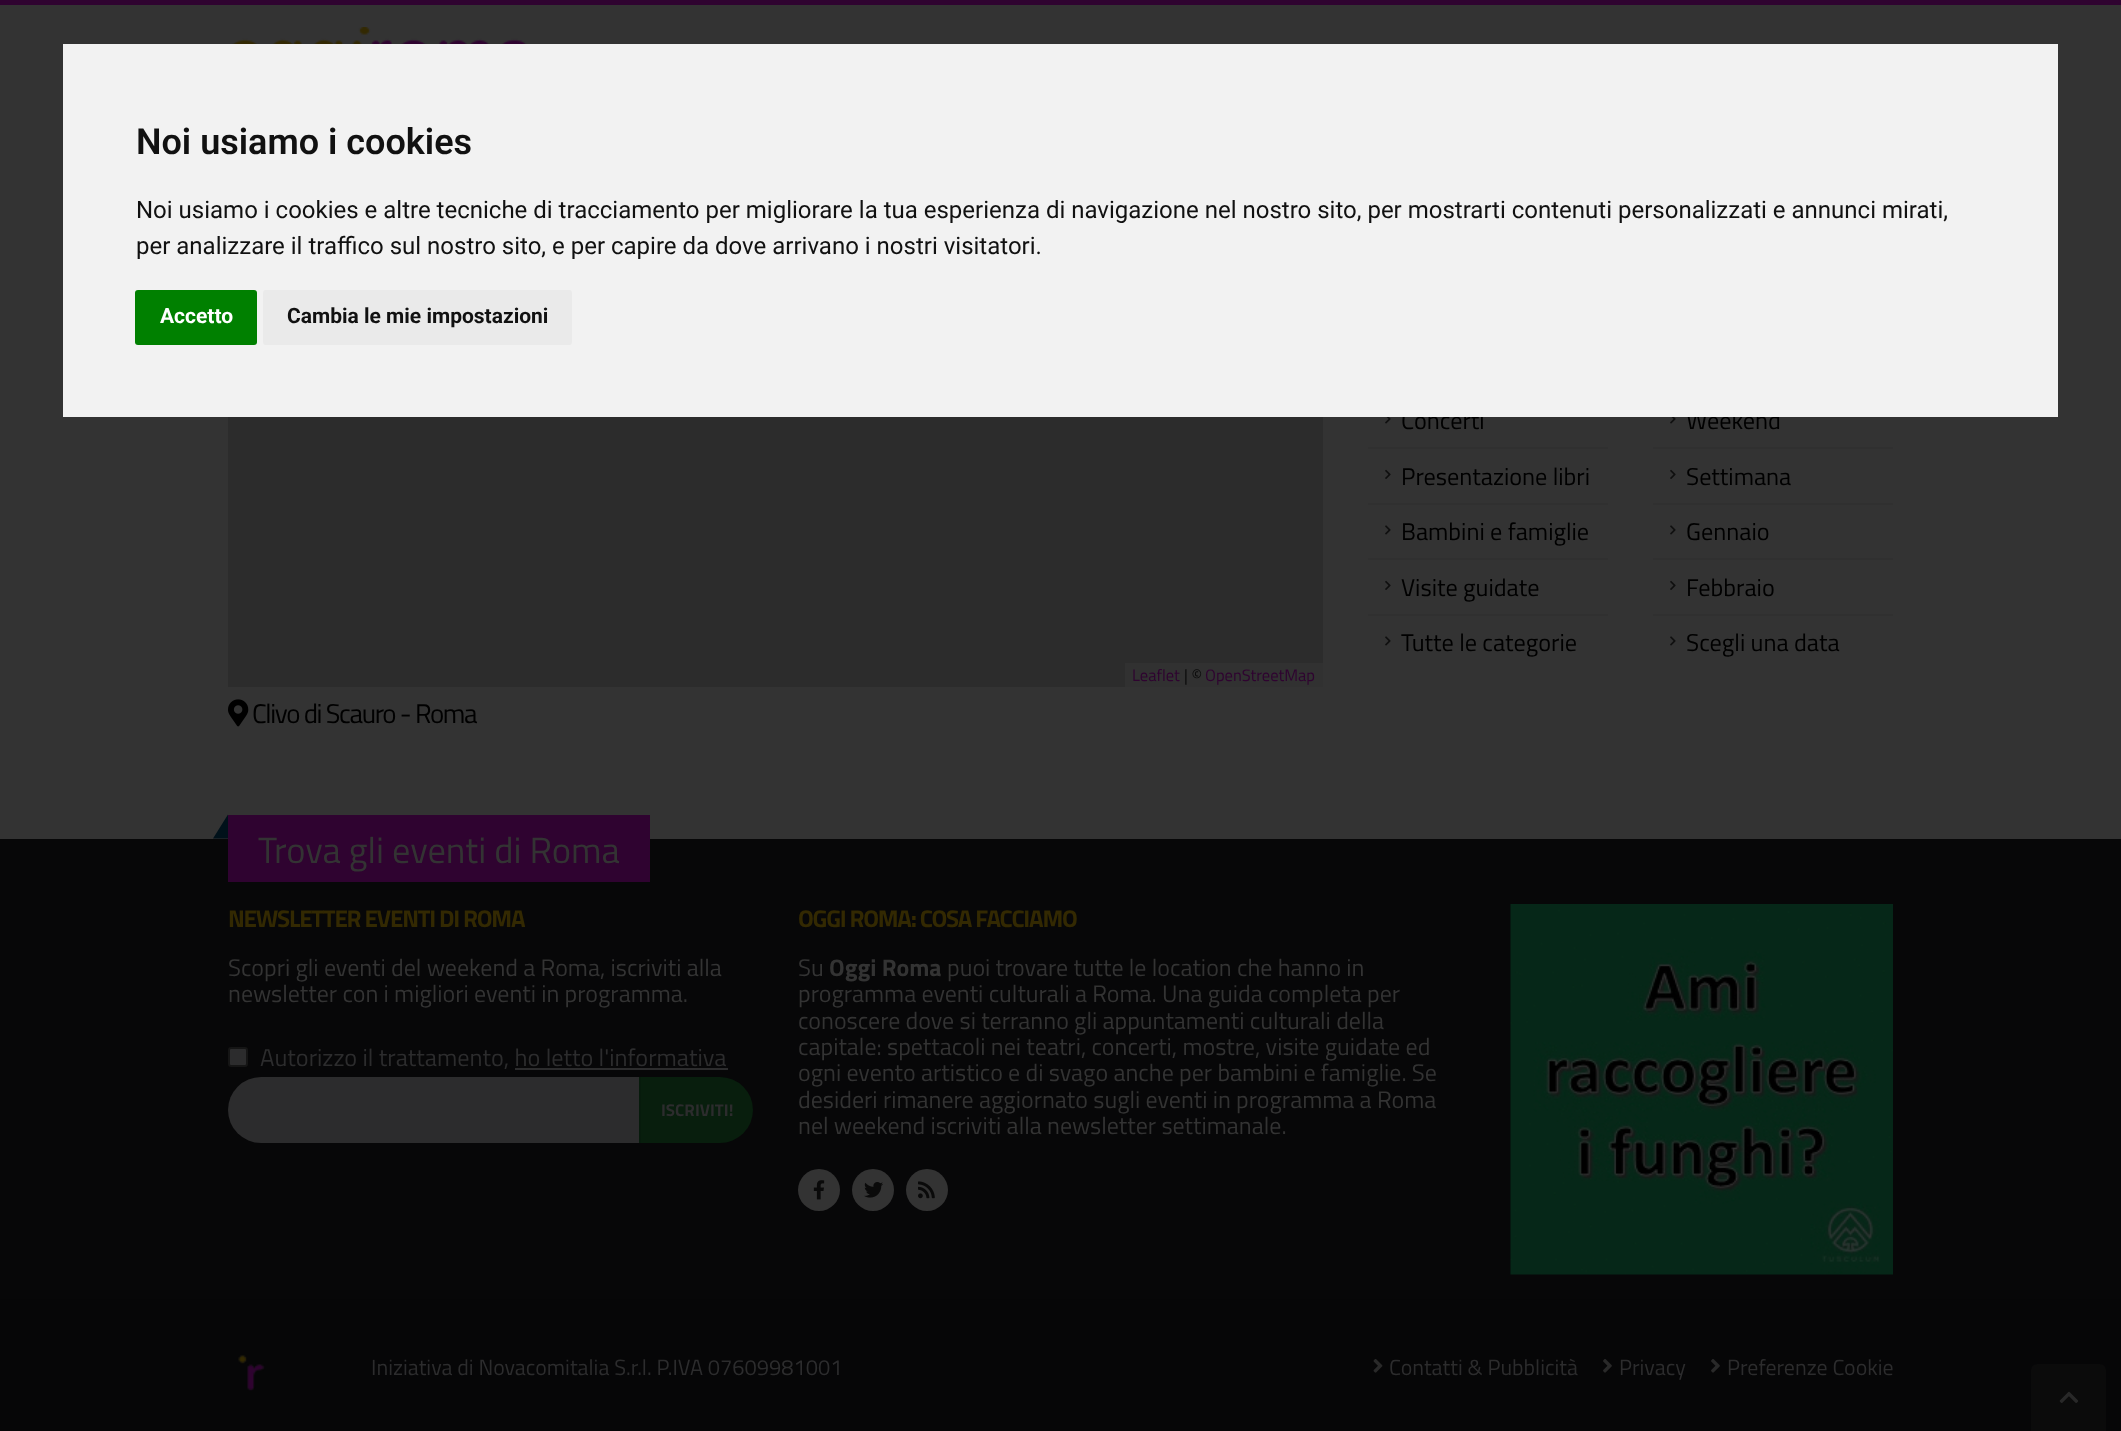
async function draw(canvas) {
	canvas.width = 2121;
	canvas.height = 1431;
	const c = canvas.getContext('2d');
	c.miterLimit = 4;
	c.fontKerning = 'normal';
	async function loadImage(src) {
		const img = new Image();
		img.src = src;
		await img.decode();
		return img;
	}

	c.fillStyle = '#333';
	c.fillRect(0, 0, 2121, 1431);
	c.font = '24.25px Titillium Web';
	c.fillStyle = '#000';
	c.fillText('Concerti', 1401, 429);
	c.fillText('Weekend', 1686, 429);
	c.fillStyle = '#f2f2f2';
	c.fillRect(63, 44, 1995, 373);
	c.font = '600 36px Roboto';
	c.fillStyle = '#111';
	c.fillText('Noi usiamo i cookies', 136, 154);
	c.font = '24px Roboto';
	c.fillText('Noi usiamo i cookies e altre tecniche di tracciamento per migliorare la tua esperienza di navigazione nel nostro sito, per mostrarti contenuti personalizzati e annunci mirati,', 136, 218);
	c.fillText('per analizzare il traffico sul nostro sito, e per capire da dove arrivano i nostri visitatori.', 136, 254);
	c.fillStyle = '#008000';
	c.beginPath();
	c.roundRect(135, 290, 122, 55, 3);
	c.fill();
	c.font = 'bold 21px Roboto';
	c.fillStyle = '#fff';
	c.fillText('Accetto', 160, 323);
	c.fillStyle = '#eaeaea';
	c.beginPath();
	c.roundRect(263, 290, 309, 55, 3);
	c.fill();
	c.fillStyle = '#111';
	c.fillText('Cambia le mie impostazioni', 287, 323);
	c.fillStyle = '#2f0330';
	c.fillRect(0, 0, 2121, 5);
	c.drawImage(await loadImage('img1.png'), 232, 27, 295, 17);
	c.fillStyle = '#303030';
	c.fillRect(1368, 447, 240, 2);
	c.drawImage(await loadImage('img2.png'), 1385, 417, 6, 7);
	c.fillRect(1368, 503, 240, 2);
	c.drawImage(await loadImage('img3.png'), 1385, 469, 6, 10);
	c.font = '24.25px Titillium Web';
	c.fillStyle = '#000';
	c.fillText('Presentazione libri', 1401, 485);
	c.fillStyle = '#303030';
	c.fillRect(1368, 558, 240, 2);
	c.drawImage(await loadImage('img4.png'), 1385, 525, 6, 10);
	c.fillStyle = '#000';
	c.fillText('Bambini e famiglie', 1401, 540);
	c.fillStyle = '#303030';
	c.fillRect(1368, 614, 240, 2);
	c.drawImage(await loadImage('img3.png'), 1385, 580, 6, 10);
	c.fillStyle = '#000';
	c.fillText('Visite guidate', 1401, 596);
	c.drawImage(await loadImage('img4.png'), 1385, 636, 6, 10);
	c.fillText('Tutte le categorie', 1401, 651);
	c.fillStyle = '#303030';
	c.fillRect(1653, 447, 240, 2);
	c.drawImage(await loadImage('img2.png'), 1670, 417, 6, 7);
	c.fillRect(1653, 503, 240, 2);
	c.drawImage(await loadImage('img3.png'), 1670, 469, 6, 10);
	c.fillStyle = '#000';
	c.fillText('Settimana', 1686, 485);
	c.fillStyle = '#303030';
	c.fillRect(1653, 558, 240, 2);
	c.drawImage(await loadImage('img4.png'), 1670, 525, 6, 10);
	c.fillStyle = '#000';
	c.fillText('Gennaio', 1686, 540);
	c.fillStyle = '#303030';
	c.fillRect(1653, 614, 240, 2);
	c.drawImage(await loadImage('img3.png'), 1670, 580, 6, 10);
	c.fillStyle = '#000';
	c.fillText('Febbraio', 1686, 596);
	c.drawImage(await loadImage('img4.png'), 1670, 636, 6, 10);
	c.fillText('Scegli una data', 1686, 651);
	c.fillStyle = '#2c2c2c';
	c.fillRect(228, 417, 1095, 270);
	c.fillStyle = '#313131';
	c.fillRect(1125, 663, 198, 24);
	c.font = '16.5px Titillium Web';
	c.fillStyle = '#2f0330';
	c.fillText('Leaflet', 1132, 681);
	c.fillStyle = '#0a0a0a';
	c.fillText('| ©', 1184, 681);
	c.fillStyle = '#2f0330';
	c.fillText('OpenStreetMap', 1205, 681);
	c.drawImage(await loadImage('img5.png'), 228, 699, 21, 28);
	c.letterSpacing = '-1.35px';
	c.font = '27px Titillium Web';
	c.fillStyle = '#000';
	c.fillText('Clivo di Scauro - Roma', 252, 723);
	c.fillStyle = '#070708';
	c.fillRect(0, 839, 2121, 460);
	c.fillStyle = '#2f0330';
	c.fillRect(228, 815, 422, 67);
	c.fillStyle = '#00111a';
	c.beginPath();
	c.moveTo(228, 814.5);
	c.lineTo(228, 838.5);
	c.lineTo(213, 838.5);
	c.closePath();
	c.fill();
	c.letterSpacing = '0px';
	c.font = '36.5px Titillium Web';
	c.fillStyle = '#333';
	c.fillText('Trova gli eventi di Roma', 258, 863);
	c.letterSpacing = '-1.25px';
	c.font = 'bold 24.25px Titillium Web';
	c.fillStyle = '#332902';
	c.fillText('NEWSLETTER EVENTI DI ROMA', 228, 927);
	c.letterSpacing = '0px';
	c.font = '24px Titillium Web';
	c.fillStyle = '#333';
	c.fillText('Scopri gli eventi del weekend a Roma, iscriviti alla', 228, 976);
	c.fillText('newsletter con i migliori eventi in programma.', 228, 1002);
	c.fillStyle = '#2c2c2d';
	c.beginPath();
	c.roundRect(229, 1048, 18, 18, 2);
	c.fill();
	c.strokeStyle = '#151515';
	c.lineWidth = 2;
	c.stroke();
	c.font = '24.25px Titillium Web';
	c.fillText('Autorizzo il trattamento, ho letto l\'informativa', 260, 1066);
	c.fillRect(515, 1068, 213, 2);
	c.beginPath();
	c.roundRect(228, 1077, 413, 66, [33, 0, 0, 33]);
	c.fill();
	c.fillStyle = '#081e0d';
	c.beginPath();
	c.roundRect(639, 1077, 114, 66, [0, 33, 33, 0]);
	c.fill();
	c.fillStyle = '#071b0c';
	c.fillRect(639, 1077, 2, 66);
	c.font = 'bold 17px Titillium Web';
	c.fillStyle = '#2c2c2d';
	c.fillText('ISCRIVITI!', 661, 1116);
	c.letterSpacing = '-1.25px';
	c.font = 'bold 24.25px Titillium Web';
	c.fillStyle = '#332902';
	c.fillText('OGGI ROMA: COSA FACCIAMO', 798, 927);
	c.letterSpacing = '0px';
	c.font = '24px Titillium Web';
	c.fillStyle = '#333';
	c.fillText('Su', 798, 976);
	c.font = 'bold 24px Titillium Web';
	c.fillText('Oggi Roma', 829, 976);
	c.font = '24px Titillium Web';
	for (const [text, x, y] of [
		['puoi trovare tutte le location che hanno in', 947, 976],
		['programma eventi culturali a Roma. Una guida completa per', 798, 1002],
		['conoscere dove si terranno gli appuntamenti culturali della', 798, 1029],
		['capitale: spettacoli nei teatri, concerti, mostre, visite guidate ed', 798, 1055],
		['ogni evento artistico e di svago anche per bambini e famiglie. Se', 798, 1081],
		['desideri rimanere aggiornato sugli eventi in programma a Roma', 798, 1108],
		['nel weekend iscriviti alla newsletter settimanale.', 798, 1134],
	]) {
		c.fillText(text, x, y);
	}
	c.beginPath();
	c.arc(819, 1190, 21, 0, 2 * Math.PI);
	c.fill();
	c.drawImage(await loadImage('img6.png'), 813, 1180, 12, 20);
	c.beginPath();
	c.arc(873, 1190, 21, 0, 2 * Math.PI);
	c.fill();
	c.drawImage(await loadImage('img7.png'), 864, 1182, 19, 16);
	c.beginPath();
	c.arc(927, 1190, 21, 0, 2 * Math.PI);
	c.fill();
	c.drawImage(await loadImage('img8.png'), 918, 1181, 17, 18);
	c.drawImage(await loadImage('img9.png'), 1510, 904, 383, 371);
	c.fillStyle = '#060607';
	c.fillRect(0, 1299, 2121, 132);
	c.drawImage(await loadImage('img10.png'), 238, 1355, 27, 36);
	c.font = '21.9px Titillium Web';
	c.fillStyle = '#2c2c2d';
	c.fillText('Iniziativa di Novacomitalia S.r.l. P.IVA 07609981001', 371, 1375);
	c.drawImage(await loadImage('img11.png'), 1373, 1359, 10, 14);
	c.fillText('Contatti & Pubblicità', 1389, 1375);
	c.drawImage(await loadImage('img12.png'), 1603, 1359, 9, 14);
	c.fillText('Privacy', 1619, 1375);
	c.drawImage(await loadImage('img12.png'), 1711, 1359, 9, 14);
	c.fillText('Preferenze Cookie', 1727, 1375);
	c.fillStyle = '#0b0b0b';
	c.beginPath();
	c.roundRect(2031, 1364, 75, 67, [6, 6, 0, 0]);
	c.fill();
	c.drawImage(await loadImage('img13.png'), 2059, 1391, 20, 12);
}

draw(document.querySelector('canvas'));
